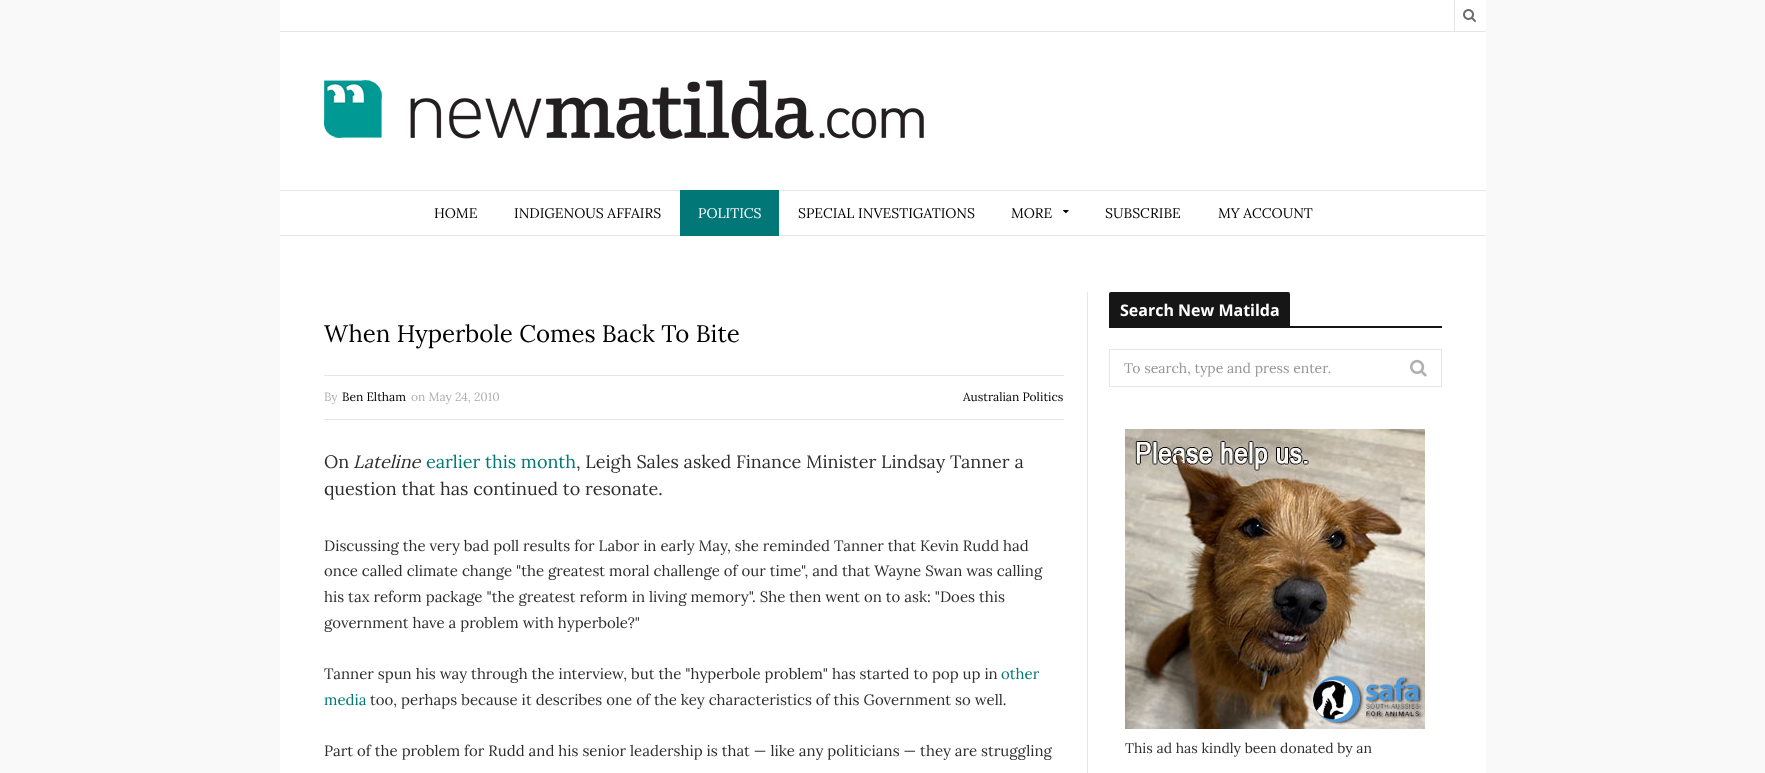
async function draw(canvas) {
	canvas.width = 1765;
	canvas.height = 773;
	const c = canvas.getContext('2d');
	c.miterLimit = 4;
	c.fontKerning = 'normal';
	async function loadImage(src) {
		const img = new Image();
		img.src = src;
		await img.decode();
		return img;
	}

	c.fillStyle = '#f9f9f9';
	c.fillRect(0, 0, 1765, 773);
	c.fillStyle = '#00000040';
	c.filter = 'blur(0.5px)';
	c.beginPath();
	c.rect(280, 0, 1206, 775);
	c.fill();
	c.filter = 'none';
	for (const [x, y, w, h, color] of [
		[280, 0, 1206, 773, '#fff'],
		[280, 31, 1206, 1, '#e6e6e6'],
		[1454, 0, 1, 31, '#e6e6e6'],
	]) {
		c.fillStyle = color;
		c.fillRect(x, y, w, h);
	}
	c.drawImage(await loadImage('img1.png'), 1463, 9, 13, 13);
	c.drawImage(await loadImage('img2.png'), 324, 80, 600, 59);
	c.fillRect(280, 190, 1206, 1);
	c.fillRect(280, 235, 1206, 1);
	c.font = '14px Lora';
	c.fillStyle = '#010101';
	c.fillText('HOME', 434, 218);
	c.fillText('INDIGENOUS AFFAIRS', 514, 218);
	c.fillStyle = '#017777';
	c.fillRect(680, 190, 99, 46);
	c.fillStyle = '#fff';
	c.fillText('POLITICS', 698, 218);
	c.fillStyle = '#010101';
	c.fillText('SPECIAL INVESTIGATIONS', 798, 218);
	c.fillText('MORE', 1011, 218);
	c.drawImage(await loadImage('img3.png'), 1063, 210, 6, 4);
	c.fillText('SUBSCRIBE', 1105, 218);
	c.fillText('MY ACCOUNT', 1218, 218);
	c.font = '24px Lora';
	c.fillText('When Hyperbole Comes Back To Bite', 324, 342);
	c.fillStyle = '#e6e6e6';
	c.fillRect(324, 375, 740, 1);
	c.fillRect(324, 419, 740, 1);
	c.font = '12px Lora';
	c.fillStyle = '#b0b0b0';
	c.fillText('By', 324, 401);
	c.fillStyle = '#010101';
	c.fillText('Ben Eltham', 342, 401);
	c.fillStyle = '#b0b0b0';
	c.fillText('on May 24, 2010', 411, 401);
	c.fillStyle = '#010101';
	c.fillText('Australian Politics', 963, 401);
	c.font = '18px Lora';
	c.fillStyle = '#2e2e2e';
	c.fillText('On', 324, 468);
	c.font = 'italic 18px Lora';
	c.fillText('Lateline', 353, 468);
	c.font = '18px Lora';
	c.fillStyle = '#017777';
	c.fillText('earlier this month', 426, 468);
	c.fillStyle = '#2e2e2e';
	c.fillText(', Leigh Sales asked Finance Minister Lindsay Tanner a', 576, 468);
	c.fillText('question that has continued to resonate.', 324, 495);
	c.font = '15px Lora';
	for (const [text, x, y] of [
		['Discussing the very bad poll results for Labor in early May, she reminded Tanner that Kevin Rudd had', 324, 551],
		['once called climate change "the greatest moral challenge of our time", and that Wayne Swan was calling', 324, 576],
		['his tax reform package "the greatest reform in living memory". She then went on to ask: "Does this', 324, 602],
		['government have a problem with hyperbole?"', 324, 628],
		['Tanner spun his way through the interview, but the "hyperbole problem" has started to pop up in', 324, 679],
	]) {
		c.fillText(text, x, y);
	}
	c.fillStyle = '#017777';
	c.fillText('other', 1001, 679);
	c.fillText('media', 324, 705);
	c.fillStyle = '#2e2e2e';
	c.fillText('too, perhaps because it describes one of the key characteristics of this Government so well.', 370, 705);
	c.fillText('Part of the problem for Rudd and his senior leadership is that — like any politicians — they are struggling', 324, 756);
	c.fillStyle = '#e6e6e6';
	c.fillRect(1087, 292, 1, 481);
	c.fillStyle = '#161616';
	c.fillRect(1109, 326, 333, 2);
	c.beginPath();
	c.roundRect(1109, 292, 181, 36, 2);
	c.fill();
	c.font = 'bold 16px Open Sans';
	c.fillStyle = '#fff';
	c.fillText('Search New Matilda', 1120, 316);
	c.strokeStyle = '#e6e6e6';
	c.strokeRect(1109.5, 349.5, 332, 37);
	c.save();
	c.beginPath();
	c.rect(1124, 359, 289, 18);
	c.clip();
	c.font = '14px Lora';
	c.fillStyle = '#959595';
	c.fillText('To search, type and press enter.', 1124, 373);
	c.restore();
	c.drawImage(await loadImage('img4.png'), 1410, 359, 17, 18);
	c.drawImage(await loadImage('img5.png'), 1125, 429, 300, 300);
	c.font = '14px Lora';
	c.fillStyle = '#2e2e2e';
	c.fillText('This ad has kindly been donated by an', 1125, 753);
}

draw(document.querySelector('canvas'));
